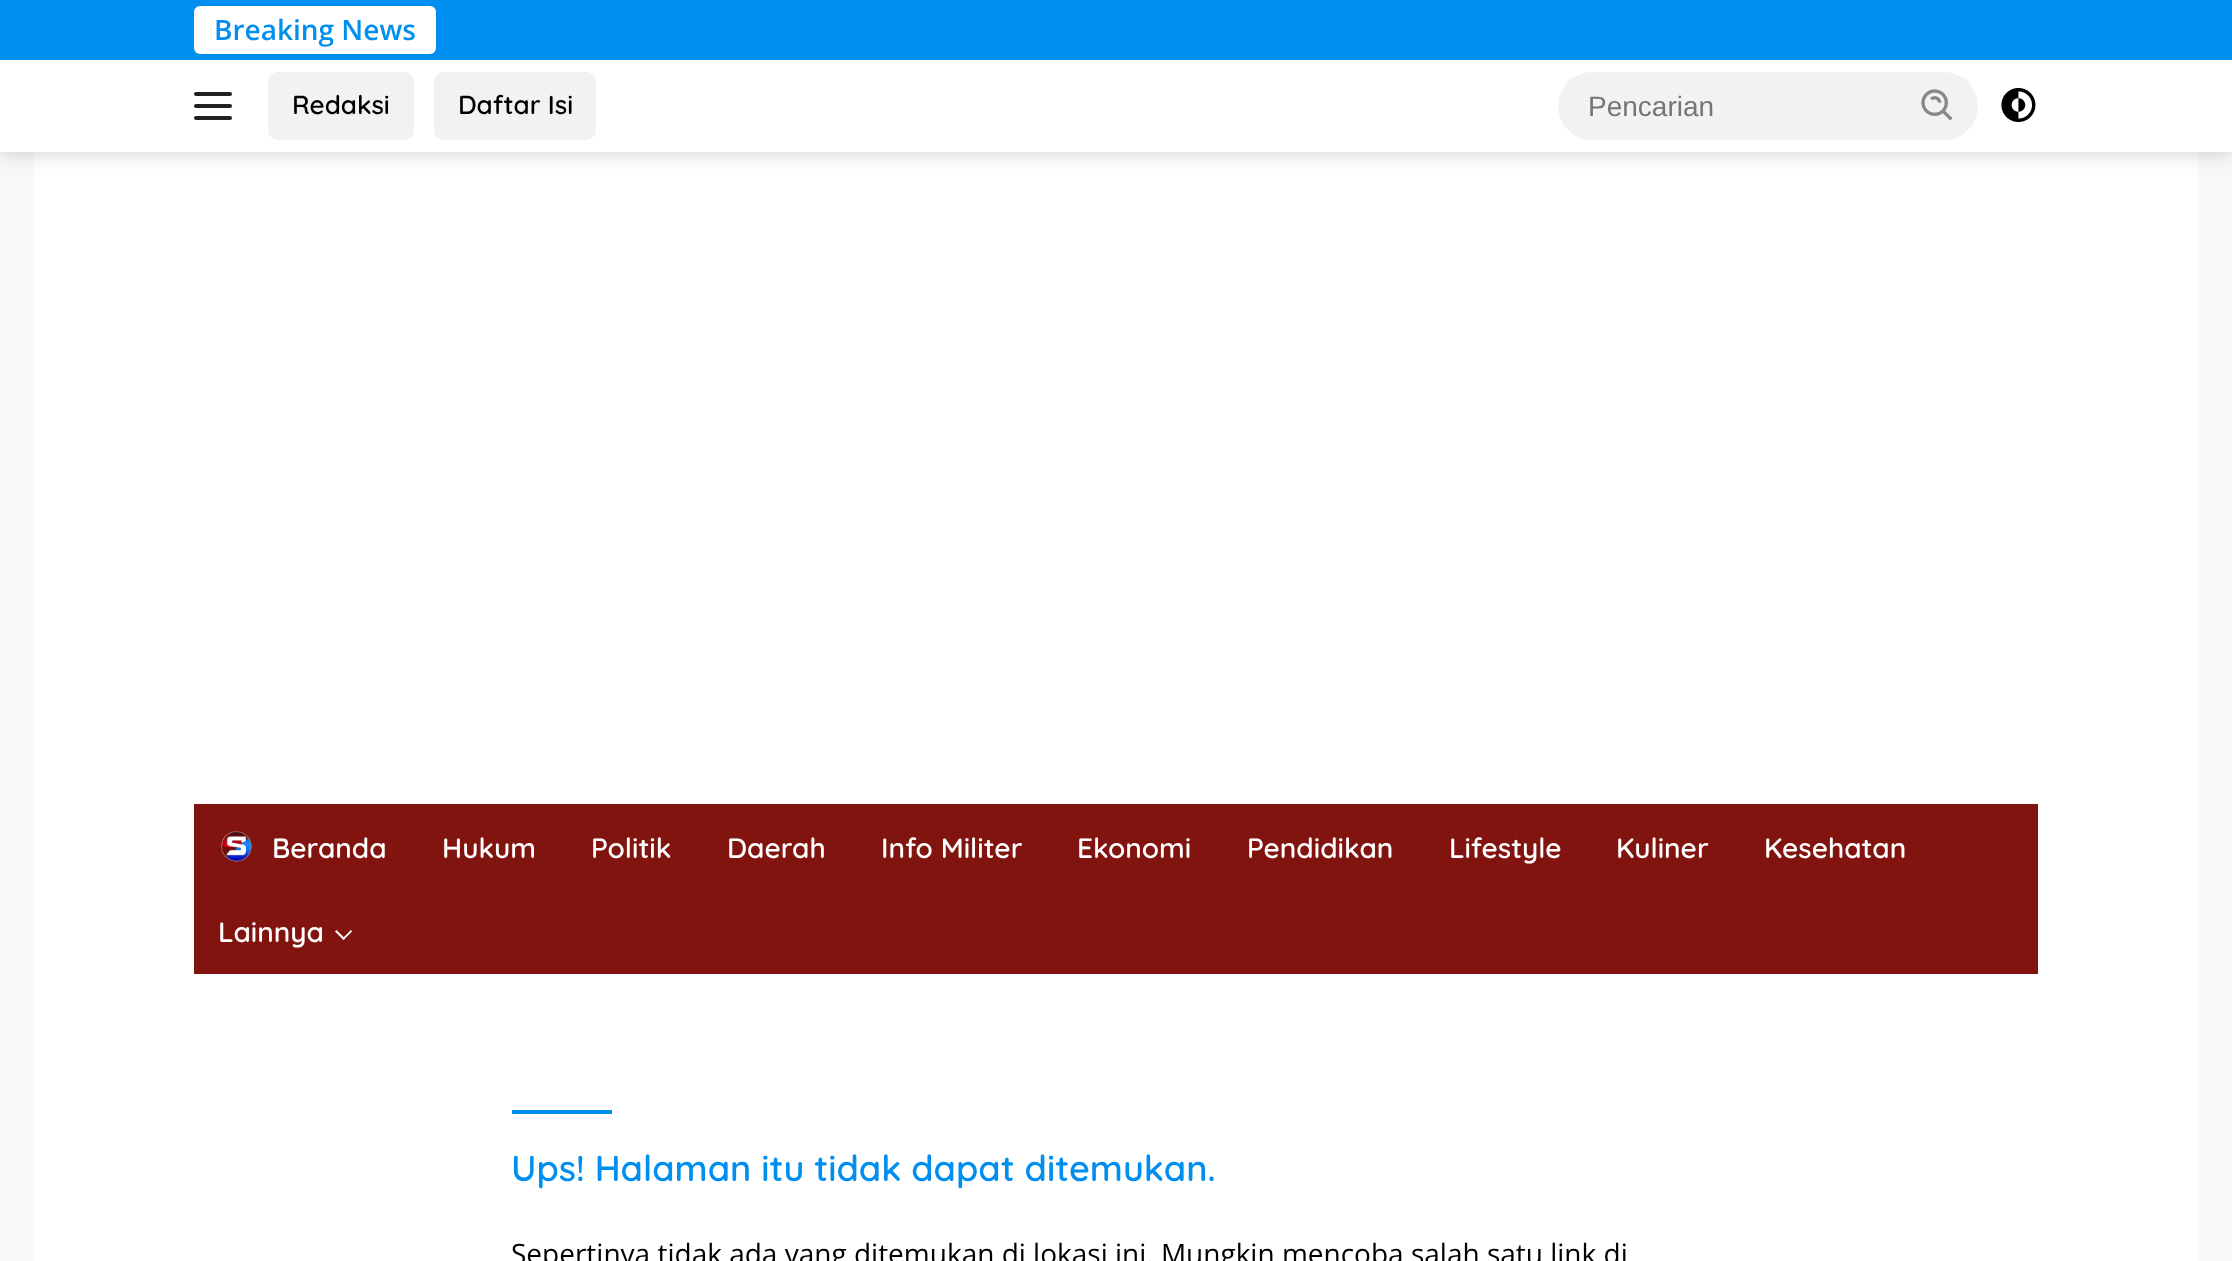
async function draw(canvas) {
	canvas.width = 2232;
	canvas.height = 1261;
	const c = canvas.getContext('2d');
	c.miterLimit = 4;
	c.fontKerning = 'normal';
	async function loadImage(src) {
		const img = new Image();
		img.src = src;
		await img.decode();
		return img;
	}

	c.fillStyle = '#f8f8f8';
	c.fillRect(0, 0, 2232, 1261);
	c.fillStyle = '#fff';
	c.fillRect(34, 152, 2164, 1109);
	c.fillStyle = '#00000033';
	c.filter = 'blur(10px)';
	c.beginPath();
	c.rect(0, 0, 2232, 152);
	c.fill();
	c.filter = 'none';
	c.fillStyle = '#fff';
	c.fillRect(0, 60, 2232, 92);
	c.fillStyle = '#008fef';
	c.fillRect(0, 0, 2232, 60);
	c.fillStyle = '#fff';
	c.beginPath();
	c.roundRect(194, 6, 242, 48, 6);
	c.fill();
	c.font = '600 28px Open Sans';
	c.fillStyle = '#008fef';
	c.fillText('Breaking News', 214, 40);
	c.fillStyle = '#222';
	c.beginPath();
	c.roundRect(194, 92, 38, 4, 2);
	c.fill();
	c.beginPath();
	c.roundRect(194, 104, 38, 4, 2);
	c.fill();
	c.beginPath();
	c.roundRect(194, 116, 38, 4, 2);
	c.fill();
	c.fillStyle = '#f2f2f2';
	c.beginPath();
	c.roundRect(268, 72, 146, 68, 10);
	c.fill();
	c.font = '600 26px Quicksand';
	c.fillStyle = '#000';
	c.fillText('Redaksi', 292, 114);
	c.fillStyle = '#f2f2f2';
	c.beginPath();
	c.roundRect(434, 72, 162, 68, 10);
	c.fill();
	c.fillStyle = '#000';
	c.fillText('Daftar Isi', 458, 114);
	c.fillStyle = '#f2f2f2';
	c.beginPath();
	c.roundRect(1558, 72, 420, 68, 34);
	c.fill();
	c.font = '28px Liberation Sans';
	c.fillStyle = '#757575';
	c.fillText('Pencarian', 1588, 116);
	c.drawImage(await loadImage('img1.png'), 1921, 89, 32, 32);
	c.drawImage(await loadImage('img2.png'), 2001, 88, 35, 34);
	c.fillStyle = '#81140e';
	c.fillRect(194, 804, 1844, 170);
	c.drawImage(await loadImage('img3.png'), 221, 831, 31, 31);
	c.font = '600 28px Quicksand';
	c.fillStyle = '#fff';
	for (const [text, x, y] of [
		['Beranda', 272, 858],
		['Hukum', 442, 858],
		['Politik', 591, 858],
		['Daerah', 727, 858],
		['Info Militer', 881, 858],
		['Ekonomi', 1077, 858],
		['Pendidikan', 1247, 858],
		['Lifestyle', 1449, 858],
		['Kuliner', 1616, 858],
		['Kesehatan', 1764, 858],
		['Lainnya', 218, 942],
	]) {
		c.fillText(text, x, y);
	}
	c.beginPath();
	c.moveTo(351, 930);
	c.lineTo(352, 931.5);
	c.lineTo(343.5, 940);
	c.lineTo(342.5, 938.5);
	c.closePath();
	c.fill();
	c.beginPath();
	c.moveTo(336.5, 930);
	c.lineTo(345, 938.5);
	c.lineTo(343.5, 940);
	c.lineTo(335, 931.5);
	c.closePath();
	c.fill();
	c.fillStyle = '#008fef';
	c.fillRect(512, 1110, 100, 4);
	c.font = '600 36px Quicksand';
	c.fillText('Ups! Halaman itu tidak dapat ditemukan.', 511, 1181);
	c.font = '28px Open Sans';
	c.fillStyle = '#000';
	c.fillText('Sepertinya tidak ada yang ditemukan di lokasi ini. Mungkin mencoba salah satu link di', 511, 1264);
}

draw(document.querySelector('canvas'));
